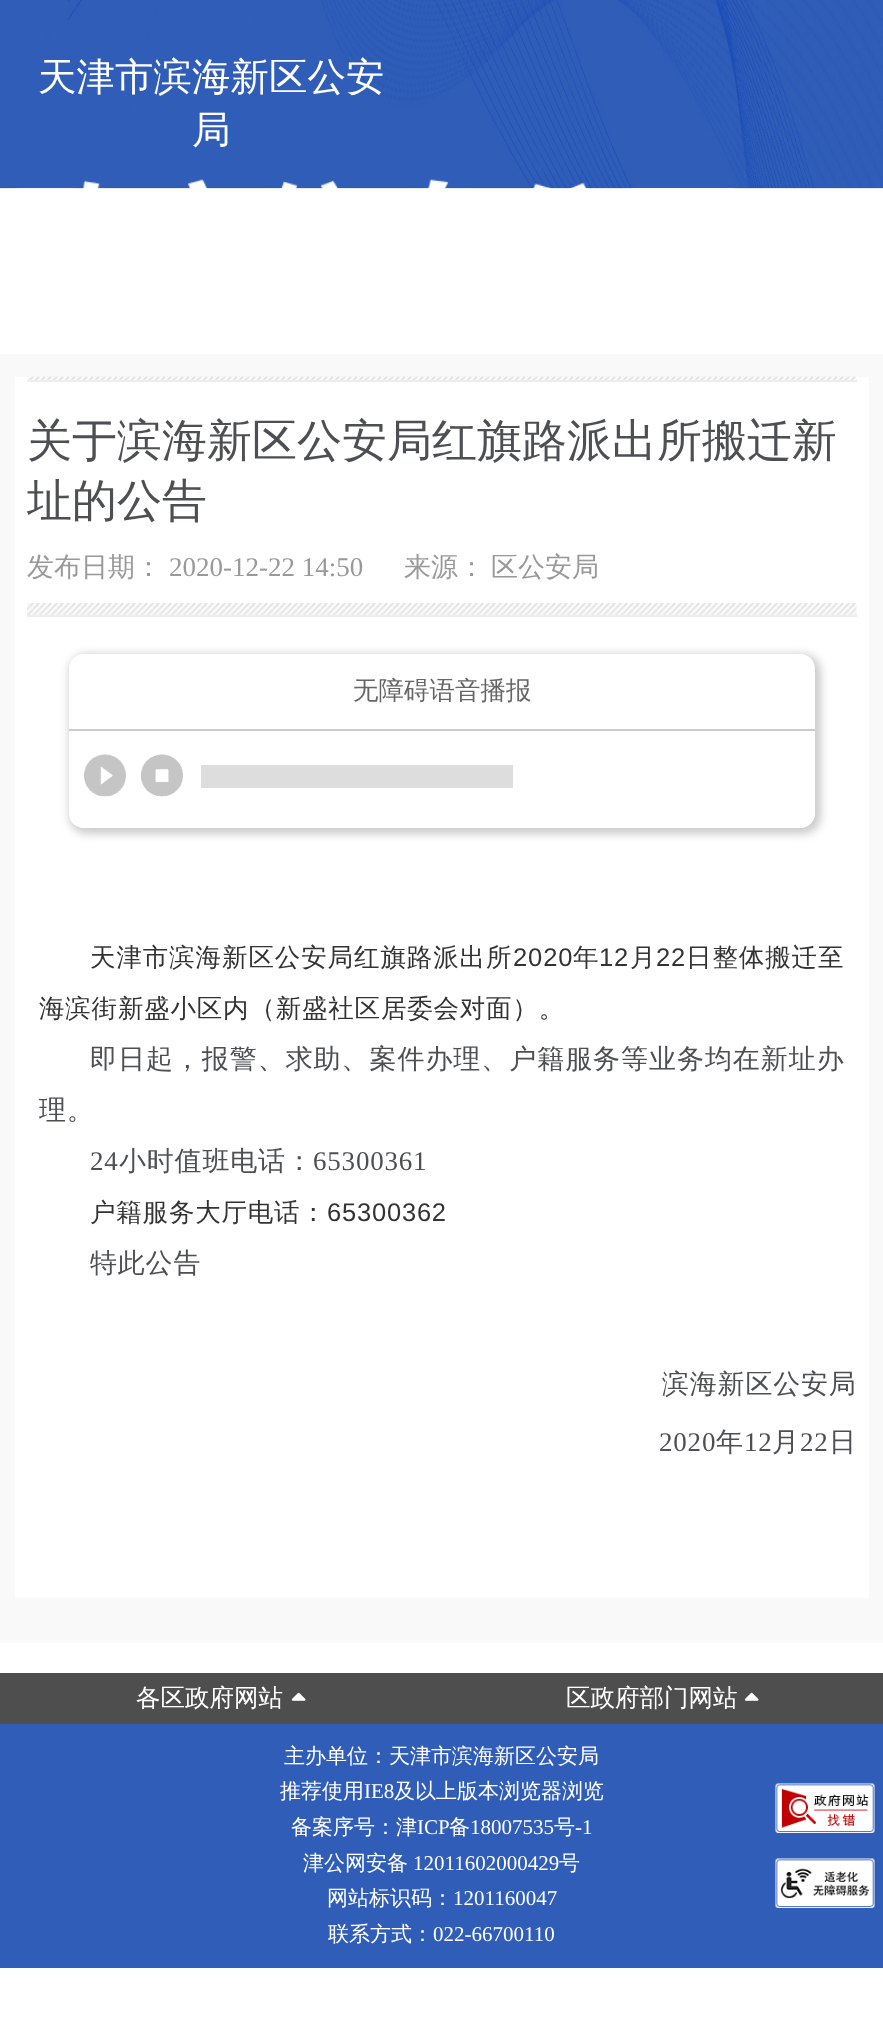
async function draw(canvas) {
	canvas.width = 883;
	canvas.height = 2021;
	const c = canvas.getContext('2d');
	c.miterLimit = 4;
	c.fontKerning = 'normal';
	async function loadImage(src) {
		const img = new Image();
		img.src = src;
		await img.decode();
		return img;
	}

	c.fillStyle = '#fff';
	c.fillRect(0, 0, 883, 2021);
	c.drawImage(await loadImage('img1.png'), 0, 0, 883, 189);
	c.font = '500 38.5px WenQuanYi Zen Hei';
	c.fillText('天津市滨海新区公安', 38, 90);
	c.fillText('局', 192, 143);
	c.drawImage(await loadImage('img2.png'), 16, 179, 718, 10);
	c.fillStyle = '#f9f9f9';
	c.fillRect(0, 354, 883, 1289);
	c.fillStyle = '#fff';
	c.fillRect(15, 377, 854, 1221);
	c.drawImage(await loadImage('img3.png'), 27, 376, 830, 4);
	c.fillStyle = '#eee';
	c.fillRect(27, 380, 830, 2);
	c.font = '500 45px WenQuanYi Zen Hei';
	c.fillStyle = '#4d4f53';
	c.fillText('关于滨海新区公安局红旗路派出所搬迁新', 27, 456);
	c.fillText('址的公告', 27, 516);
	c.font = '500 27px WenQuanYi Zen Hei';
	c.fillStyle = '#999';
	c.fillText('发布日期：', 27, 576);
	c.font = '27px Liberation Serif';
	c.fillText('2020-12-22 14:50', 169, 576);
	c.font = '500 27px WenQuanYi Zen Hei';
	c.fillText('来源：', 404, 576);
	c.fillText('区公安局', 491, 576);
	c.drawImage(await loadImage('img4.png'), 27, 603, 830, 12);
	c.fillStyle = '#eee';
	c.fillRect(27, 615, 830, 2);
	c.save();
	c.beginPath();
	c.moveTo(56, 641);
	c.lineTo(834, 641);
	c.lineTo(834, 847);
	c.lineTo(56, 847);
	c.closePath();
	c.moveTo(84, 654);
	c.lineTo(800, 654);
	c.bezierCurveTo(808.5, 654, 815, 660.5, 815, 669);
	c.lineTo(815, 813);
	c.bezierCurveTo(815, 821.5, 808.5, 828, 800, 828);
	c.lineTo(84, 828);
	c.bezierCurveTo(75.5, 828, 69, 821.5, 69, 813);
	c.lineTo(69, 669);
	c.bezierCurveTo(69, 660.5, 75.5, 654, 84, 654);
	c.closePath();
	c.clip('evenodd');
	c.fillStyle = '#ccc';
	c.filter = 'blur(4px)';
	c.beginPath();
	c.roundRect(69, 654, 752, 180, 18);
	c.fill();
	c.filter = 'none';
	c.restore();
	c.fillStyle = '#ccc';
	c.fillRect(69, 729, 746, 2);
	c.font = '500 25.5px WenQuanYi Zen Hei';
	c.fillStyle = '#666';
	c.fillText('无障碍语音播报', 353, 699);
	c.fillStyle = '#fff';
	c.beginPath();
	c.roundRect(69, 731, 746, 97, [0, 0, 15, 15]);
	c.fill();
	c.drawImage(await loadImage('img5.png'), 84, 754, 42, 43);
	c.drawImage(await loadImage('img6.png'), 141, 754, 42, 43);
	c.fillStyle = '#ddd';
	c.fillRect(201, 765, 312, 23);
	c.letterSpacing = '0.9px';
	c.fillStyle = '#333';
	c.fillText('天津市滨海新区公安局红旗路派出所', 90, 966);
	c.font = '25.5px Liberation Sans';
	c.fillText('2020', 513, 966);
	c.font = '500 25.5px WenQuanYi Zen Hei';
	c.fillText('年', 573, 966);
	c.font = '25.5px Liberation Sans';
	c.fillText('12', 599, 966);
	c.font = '500 25.5px WenQuanYi Zen Hei';
	c.fillText('月', 630, 966);
	c.font = '25.5px Liberation Sans';
	c.fillText('22', 656, 966);
	c.font = '500 25.5px WenQuanYi Zen Hei';
	c.fillText('日整体搬迁至', 686, 966);
	c.letterSpacing = '0.8px';
	c.fillText('海滨街新盛小区内（新盛社区居委会对面）。', 39, 1017);
	c.letterSpacing = '0.95px';
	c.font = '500 27px WenQuanYi Zen Hei';
	c.fillStyle = '#4d4f53';
	c.fillText('即日起，报警、求助、案件办理、户籍服务等业务均在新址办', 90, 1068);
	c.letterSpacing = '0.8px';
	c.fillText('理。', 39, 1119);
	c.font = '27px Liberation Serif';
	c.fillText('24', 90, 1170);
	c.font = '500 27px WenQuanYi Zen Hei';
	c.fillText('小时值班电话：', 119, 1170);
	c.font = '27px Liberation Serif';
	c.fillText('65300361', 313, 1170);
	c.font = '500 25.5px WenQuanYi Zen Hei';
	c.fillStyle = '#333';
	c.fillText('户籍服务大厅电话：', 90, 1221);
	c.font = '25.5px Liberation Sans';
	c.fillText('65300362', 327, 1221);
	c.font = '500 27px WenQuanYi Zen Hei';
	c.fillStyle = '#4d4f53';
	c.fillText('特此公告', 90, 1272);
	c.fillText('滨海新区公安局', 662, 1393);
	c.font = '27px Liberation Serif';
	c.fillText('2020', 659, 1451);
	c.font = '500 27px WenQuanYi Zen Hei';
	c.fillText('年', 716, 1451);
	c.font = '27px Liberation Serif';
	c.fillText('12', 744, 1451);
	c.font = '500 27px WenQuanYi Zen Hei';
	c.fillText('月', 772, 1451);
	c.font = '27px Liberation Serif';
	c.fillText('22', 800, 1451);
	c.font = '500 27px WenQuanYi Zen Hei';
	c.fillText('日', 829, 1451);
	c.fillStyle = '#4e4e4e';
	c.fillRect(0, 1673, 883, 51);
	c.letterSpacing = '0px';
	c.font = '500 24.5px WenQuanYi Zen Hei';
	c.fillStyle = '#fff';
	c.fillText('各区政府网站', 136, 1706);
	c.drawImage(await loadImage('img7.png'), 291, 1692, 15, 9);
	c.fillText('区政府部门网站', 566, 1706);
	c.drawImage(await loadImage('img7.png'), 744, 1692, 15, 9);
	c.fillStyle = '#2f5db8';
	c.fillRect(0, 1724, 883, 244);
	c.font = '500 21px WenQuanYi Zen Hei';
	c.fillStyle = '#fff';
	c.fillText('主办单位：天津市滨海新区公安局', 284, 1763);
	c.fillText('推荐使用', 280, 1798);
	c.font = '21px Liberation Serif';
	c.fillText('IE8', 364, 1798);
	c.font = '500 21px WenQuanYi Zen Hei';
	c.fillText('及以上版本浏览器浏览', 394, 1798);
	c.fillText('备案序号：津', 291, 1834);
	c.font = '21px Liberation Serif';
	c.fillText('ICP', 417, 1834);
	c.font = '500 21px WenQuanYi Zen Hei';
	c.fillText('备', 449, 1834);
	c.font = '21px Liberation Serif';
	c.fillText('18007535', 470, 1834);
	c.font = '500 21px WenQuanYi Zen Hei';
	c.fillText('号', 554, 1834);
	c.font = '21px Liberation Serif';
	c.fillText('-1', 575, 1834);
	c.font = '500 21px WenQuanYi Zen Hei';
	c.fillText('津公网安备', 303, 1870);
	c.font = '21px Liberation Serif';
	c.fillText('12011602000429', 413, 1870);
	c.font = '500 21px WenQuanYi Zen Hei';
	c.fillText('号', 559, 1870);
	c.fillText('网站标识码：', 327, 1905);
	c.font = '21px Liberation Serif';
	c.fillText('1201160047', 453, 1905);
	c.font = '500 21px WenQuanYi Zen Hei';
	c.fillText('联系方式：', 328, 1941);
	c.font = '21px Liberation Serif';
	c.fillText('022-66700110', 433, 1941);
	c.drawImage(await loadImage('img8.png'), 775, 1783, 100, 50);
	c.drawImage(await loadImage('img9.png'), 775, 1858, 100, 50);
}

draw(document.querySelector('canvas'));
